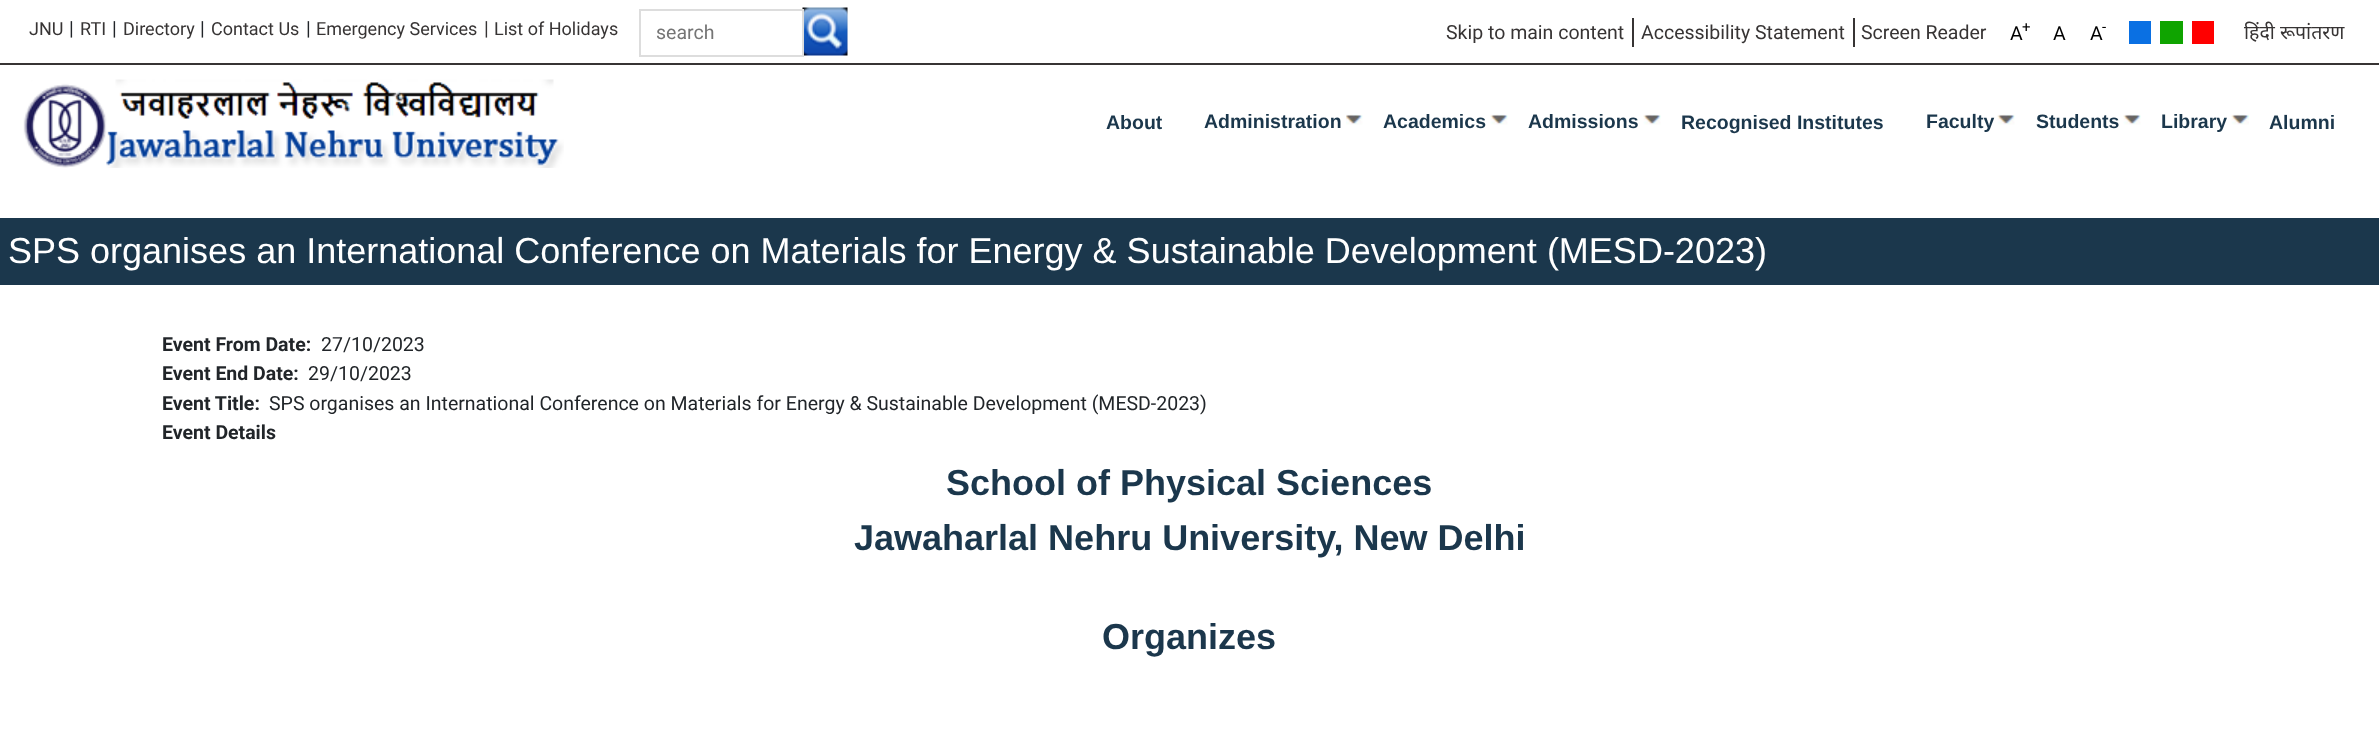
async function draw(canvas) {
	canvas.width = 2379;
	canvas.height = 737;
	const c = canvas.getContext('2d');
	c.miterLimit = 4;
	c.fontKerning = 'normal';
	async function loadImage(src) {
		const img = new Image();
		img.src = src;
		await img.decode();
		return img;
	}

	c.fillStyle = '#fff';
	c.fillRect(0, 0, 2379, 737);
	c.fillStyle = '#373434';
	c.fillRect(0, 63, 2379, 2);
	c.font = '18px Roboto';
	c.fillText('JNU', 29, 35);
	c.font = '19.5px Roboto';
	c.fillStyle = '#212529';
	c.fillText('|', 69, 35);
	c.font = '18px Roboto';
	c.fillStyle = '#373434';
	c.fillText('RTI', 80, 35);
	c.font = '19.5px Roboto';
	c.fillStyle = '#212529';
	c.fillText('|', 112, 35);
	c.font = '18px Roboto';
	c.fillStyle = '#373434';
	c.fillText('Directory', 123, 35);
	c.font = '19.5px Roboto';
	c.fillStyle = '#212529';
	c.fillText('|', 200, 35);
	c.font = '18px Roboto';
	c.fillStyle = '#373434';
	c.fillText('Contact Us', 211, 35);
	c.font = '19.5px Roboto';
	c.fillStyle = '#212529';
	c.fillText('|', 306, 35);
	c.font = '18px Roboto';
	c.fillStyle = '#373434';
	c.fillText('Emergency Services', 316, 35);
	c.font = '19.5px Roboto';
	c.fillText('|', 484, 35);
	c.font = '18px Roboto';
	c.fillText('List of Holidays', 494, 35);
	c.drawImage(await loadImage('img1.png'), 802, 7, 46, 49);
	c.strokeStyle = '#ddd';
	c.lineWidth = 2;
	c.strokeRect(640, 10, 163, 46);
	c.font = '19.5px Roboto';
	c.fillStyle = '#757575';
	c.fillText('search', 656, 39);
	c.fillStyle = '#373434';
	c.fillRect(1632, 18, 2, 29);
	c.fillText('Skip to main content', 1446, 39);
	c.fillRect(1853, 18, 2, 29);
	c.fillText('Accessibility Statement', 1641, 39);
	c.fillText('Screen Reader', 1861, 39);
	c.fillStyle = '#000';
	c.fillText('A', 2010, 40);
	c.font = '15px Roboto';
	c.fillText('+', 2022, 32);
	c.font = '19.5px Roboto';
	c.fillText('A', 2053, 40);
	c.fillText('A', 2090, 40);
	c.font = '15px Roboto';
	c.fillText('-', 2102, 32);
	for (const [x, y, w, h, color] of [
		[2129, 21, 22, 23, '#0a70e3'],
		[2160, 21, 23, 23, '#0fa400'],
		[2192, 21, 22, 23, '#f00'],
	]) {
		c.fillStyle = color;
		c.fillRect(x, y, w, h);
	}
	c.font = '19.5px Noto Sans';
	c.fillStyle = '#373434';
	c.fillText('हिंदी रूपांतरण', 2244, 39);
	c.drawImage(await loadImage('img2.png'), 23, 79, 541, 89);
	c.font = 'bold 19.5px Liberation Sans';
	c.fillStyle = '#1b374c';
	c.fillText('About', 1106, 129);
	c.fillText('Administration', 1204, 128);
	c.drawImage(await loadImage('img3.png'), 1346, 114, 17, 11);
	c.fillText('Academics', 1383, 128);
	c.drawImage(await loadImage('img4.png'), 1490, 114, 18, 11);
	c.fillText('Admissions', 1528, 128);
	c.drawImage(await loadImage('img4.png'), 1643, 114, 18, 11);
	c.fillText('Recognised Institutes', 1681, 129);
	c.fillText('Faculty', 1926, 128);
	c.drawImage(await loadImage('img4.png'), 1997, 114, 18, 11);
	c.fillText('Students', 2036, 128);
	c.drawImage(await loadImage('img4.png'), 2123, 114, 18, 11);
	c.fillText('Library', 2161, 128);
	c.drawImage(await loadImage('img5.png'), 2231, 114, 18, 11);
	c.fillText('Alumni', 2269, 129);
	c.fillRect(0, 218, 2379, 67);
	c.font = '36px Liberation Sans';
	c.fillStyle = '#fff';
	c.fillText('SPS organises an International Conference on Materials for Energy & Sustainable Development (MESD-2023)', 8, 263);
	c.font = 'bold 19.5px Roboto';
	c.fillStyle = '#212529';
	c.fillText('Event From Date:', 162, 351);
	c.font = '19.5px Roboto';
	c.fillText('27/10/2023', 321, 351);
	c.font = 'bold 19.5px Roboto';
	c.fillText('Event End Date:', 162, 380);
	c.font = '19.5px Roboto';
	c.fillText('29/10/2023', 308, 380);
	c.font = 'bold 19.5px Roboto';
	c.fillText('Event Title:', 162, 410);
	c.font = '19.5px Roboto';
	c.fillText('SPS organises an International Conference on Materials for Energy & Sustainable Development (MESD-2023)', 269, 410);
	c.font = 'bold 19.5px Roboto';
	c.fillText('Event Details', 162, 439);
	c.font = 'bold 36px Liberation Sans';
	c.fillStyle = '#1b374c';
	for (const [text, x, y] of [
		['School of Physical Sciences', 946, 495],
		['Jawaharlal Nehru University, New Delhi', 854, 550],
		['Organizes', 1102, 649],
	]) {
		c.fillText(text, x, y);
	}
}

draw(document.querySelector('canvas'));
